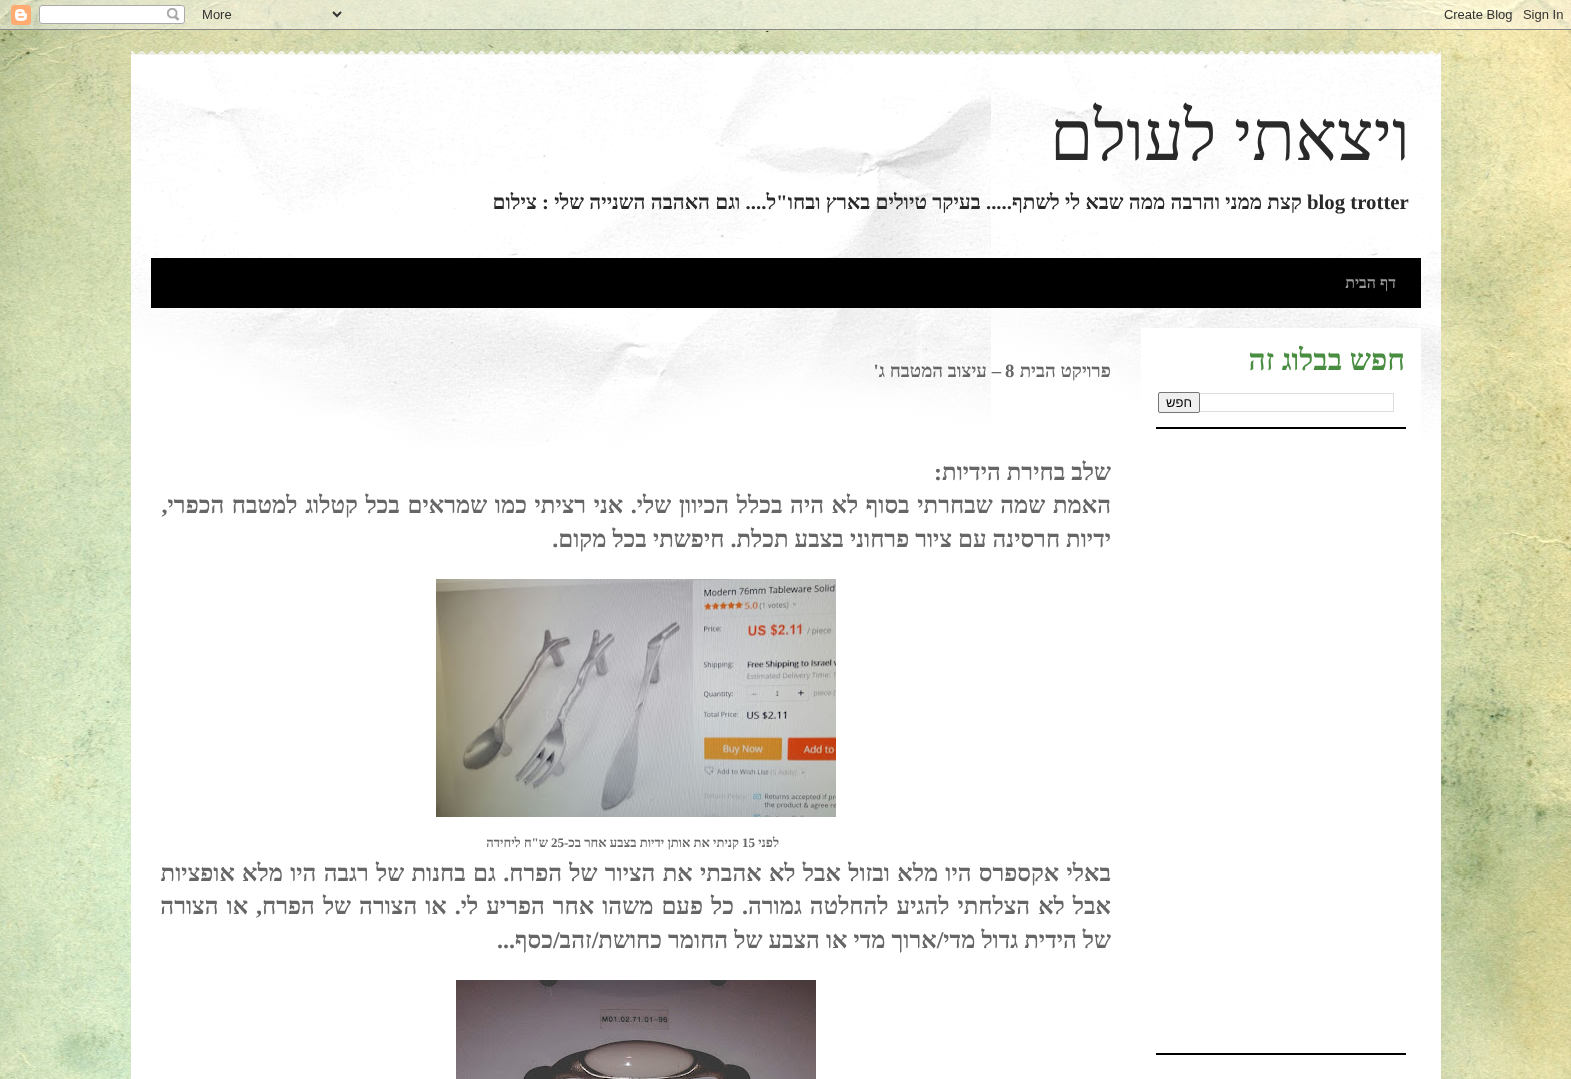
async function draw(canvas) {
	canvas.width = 1571;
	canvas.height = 1079;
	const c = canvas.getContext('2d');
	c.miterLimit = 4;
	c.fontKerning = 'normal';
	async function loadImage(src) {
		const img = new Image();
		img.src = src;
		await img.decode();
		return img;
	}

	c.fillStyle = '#fff';
	c.fillRect(0, 0, 1571, 1079);
	c.drawImage(await loadImage('img1.png'), 0, 0, 1571, 1079);
	c.drawImage(await loadImage('img2.png'), 0, 0, 1571, 30);
	c.drawImage(await loadImage('img3.png'), 131, 51, 1310, 4);
	c.fillRect(131, 55, 1310, 1024);
	c.drawImage(await loadImage('img4.png'), 131, 55, 1310, 392);
	c.direction = 'rtl';
	c.font = '70px Liberation Serif';
	c.fillStyle = '#292929';
	c.fillText('ויצאתי לעולם', 1410, 160);
	c.direction = 'ltr';
	c.font = 'bold 20.8px Liberation Serif';
	c.fillText('blog trotter', 1307, 209);
	c.direction = 'rtl';
	c.fillText('קצת ממני והרבה ממה שבא לי לשתף..... בעיקר טיולים בארץ ובחו"ל.... וגם האהבה השנייה שלי : צילום', 1302, 209);
	c.fillStyle = '#000';
	c.fillRect(151, 258, 1270, 50);
	c.font = 'bold 16px Liberation Serif';
	c.fillStyle = '#999';
	c.fillText('דף הבית', 1396, 288);
	c.fillStyle = '#fff';
	c.fillRect(1141, 328, 280, 119);
	c.fillStyle = '#000';
	c.fillRect(1156, 427, 250, 2);
	c.font = 'bold 30px Liberation Serif';
	c.fillStyle = '#498d41';
	c.fillText('חפש בבלוג זה', 1405, 370);
	c.strokeStyle = '#ddd';
	c.strokeRect(1188.5, 393.5, 205, 18);
	c.fillStyle = '#efefef';
	c.beginPath();
	c.roundRect(1158.5, 392.5, 41, 20, 1.5);
	c.fill();
	c.strokeStyle = '#767676';
	c.stroke();
	c.font = '13px Liberation Sans';
	c.fillStyle = '#000';
	c.fillText('חפש', 1192, 407);
	c.fillRect(1156, 1053, 250, 2);
	c.font = 'bold 18.75px Liberation Serif';
	c.fillStyle = '#666';
	c.fillText('פרויקט הבית', 1111, 377);
	c.direction = 'ltr';
	c.fillText('8', 1005, 377);
	c.direction = 'rtl';
	c.fillText('– עיצוב המטבח ג\'', 1001, 377);
	c.font = 'bold 24px Liberation Serif';
	c.fillText('שלב בחירת הידיות', 1111, 480);
	c.direction = 'ltr';
	c.fillText(':', 934, 480);
	c.wordSpacing = '1.6px';
	c.direction = 'rtl';
	c.fillText('האמת שמה שבחרתי בסוף לא היה בכלל הכיוון שלי. אני רציתי כמו שמראים בכל קטלוג למטבח הכפרי,', 1111, 513);
	c.wordSpacing = '0px';
	c.fillText('ידיות חרסינה עם ציור פרחוני בצבע תכלת. חיפשתי בכל מקום.', 1111, 547);
	c.drawImage(await loadImage('img5.png'), 436, 579, 400, 238);
	c.font = 'bold 13px Liberation Serif';
	c.fillText('לפני', 779, 847);
	c.direction = 'ltr';
	c.fillText('15', 742, 847);
	c.direction = 'rtl';
	c.fillText('קניתי את אותן ידיות בצבע אחר בכ-', 739, 847);
	c.direction = 'ltr';
	c.fillText('25', 551, 847);
	c.direction = 'rtl';
	c.fillText('ש"ח ליחידה', 548, 847);
	c.wordSpacing = '1.25px';
	c.font = 'bold 24px Liberation Serif';
	c.fillText('באלי אקספרס היו מלא ובזול אבל לא אהבתי את הציור של הפרח. גם בחנות של רגבה היו מלא אופציות', 1111, 881);
	c.wordSpacing = '2px';
	c.fillText('אבל לא הצלחתי להגיע להחלטה גמורה. כל פעם משהו אחר הפריע לי. או הצורה של הפרח, או הצורה', 1111, 914);
	c.wordSpacing = '0px';
	c.fillText('של הידית גדול מדי/ארוך מדי או הצבע של החומר כחושת/זהב/כסף...', 1111, 948);
	c.drawImage(await loadImage('img6.png'), 456, 980, 360, 99);
}

draw(document.querySelector('canvas'));
